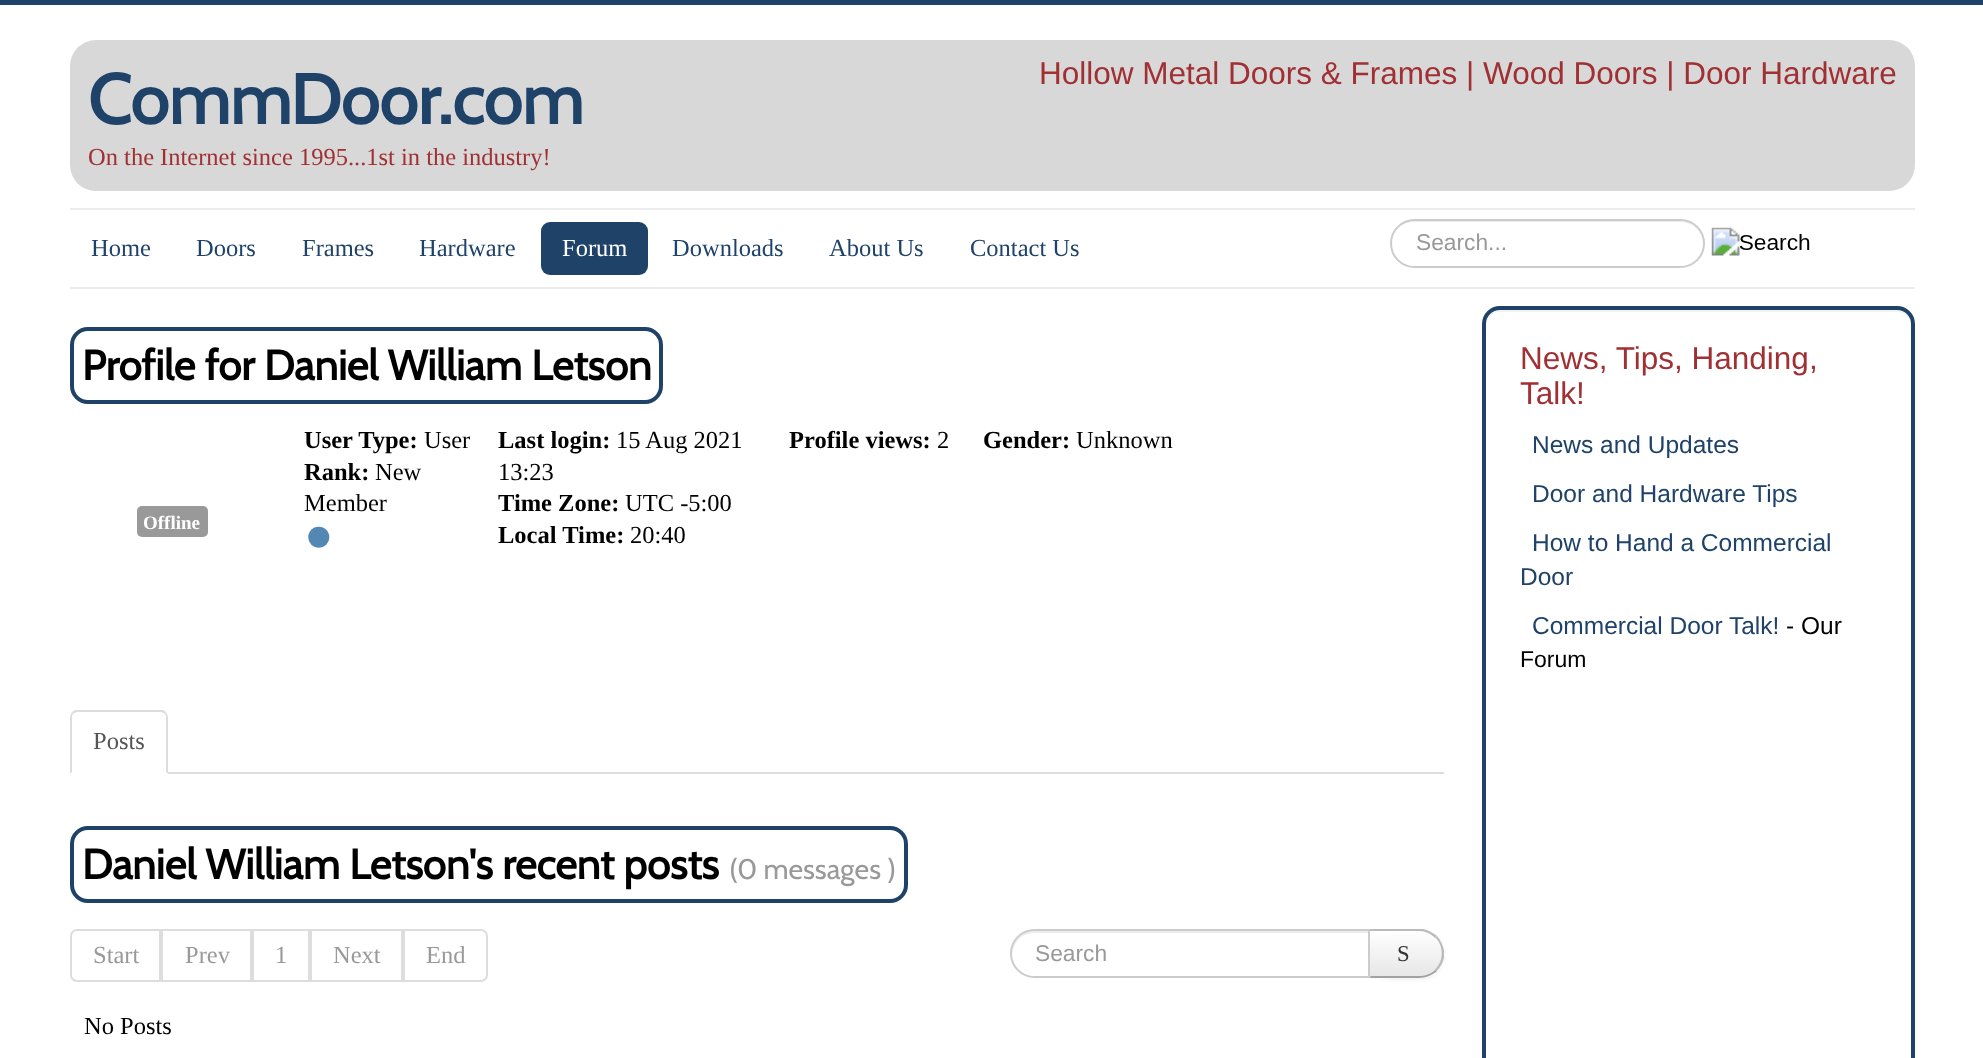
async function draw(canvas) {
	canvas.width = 1983;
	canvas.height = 1058;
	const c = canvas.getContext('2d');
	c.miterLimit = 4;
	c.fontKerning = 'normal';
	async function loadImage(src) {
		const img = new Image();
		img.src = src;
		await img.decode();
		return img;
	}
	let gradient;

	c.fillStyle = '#fff';
	c.fillRect(0, 0, 1983, 1058);
	c.fillStyle = '#1f4269';
	c.fillRect(0, 0, 1983, 5);
	c.fillStyle = '#d8d8d8';
	c.beginPath();
	c.roundRect(70, 40, 1845, 151, 26);
	c.fill();
	c.font = 'bold 70px Cabin';
	c.fillStyle = '#1f4269';
	c.fillText('CommDoor.com', 88, 124);
	c.font = '24.5px Liberation Serif';
	c.fillStyle = '#a03033';
	c.fillText('On the Internet since 1995...1st in the industry!', 88, 165);
	c.font = '31.5px Liberation Sans';
	c.fillText('Hollow Metal Doors & Frames | Wood Doors | Door Hardware', 1039, 84);
	c.fillStyle = '#ececec';
	c.fillRect(70, 208, 1845, 2);
	c.fillRect(70, 287, 1845, 2);
	c.font = '24.5px Liberation Serif';
	c.fillStyle = '#1f4269';
	for (const [text, x, y] of [
		['Home', 91, 256],
		['Doors', 196, 256],
		['Frames', 302, 256],
		['Hardware', 419, 256],
	]) {
		c.fillText(text, x, y);
	}
	c.beginPath();
	c.roundRect(541, 222, 107, 53, 9);
	c.fill();
	c.fillStyle = '#fff';
	c.fillText('Forum', 562, 256);
	c.fillStyle = '#1f4269';
	for (const [text, x, y] of [
		['Downloads', 672, 256],
		['About Us', 829, 256],
		['Contact Us', 970, 256],
	]) {
		c.fillText(text, x, y);
	}
	c.fillStyle = '#ececec';
	c.beginPath();
	c.moveTo(1414, 222);
	c.lineTo(1680, 222);
	c.bezierCurveTo(1693, 222, 1703, 232, 1703, 244);
	c.bezierCurveTo(1704, 211, 1652, 221, 1636, 221);
	c.lineTo(1458, 221);
	c.bezierCurveTo(1442, 221, 1390, 211, 1391, 244);
	c.bezierCurveTo(1391, 232, 1401, 222, 1414, 222);
	c.closePath();
	c.fill();
	c.beginPath();
	c.roundRect(1391, 220, 313, 47, 23.5);
	c.strokeStyle = '#ccc';
	c.lineWidth = 2;
	c.stroke();
	c.font = '22.75px Liberation Sans';
	c.fillStyle = '#999';
	c.fillText('Search...', 1416, 250);
	c.drawImage(await loadImage('img1.png'), 1711, 227, 99, 29);
	c.beginPath();
	c.roundRect(72, 329, 589, 73, 16);
	c.strokeStyle = '#1f4269';
	c.lineWidth = 4;
	c.stroke();
	c.font = 'bold 42px Cabin';
	c.fillStyle = '#000';
	c.fillText('Profile for Daniel William Letson', 82, 380);
	c.fillStyle = '#999';
	c.beginPath();
	c.roundRect(137, 506, 71, 31, 5);
	c.fill();
	c.font = 'bold 19px Liberation Serif';
	c.fillStyle = '#fff';
	c.fillText('Offline', 143, 529);
	c.font = 'bold 24.5px Liberation Serif';
	c.fillStyle = '#000';
	c.fillText('User Type:', 304, 448);
	c.font = '24.5px Liberation Serif';
	c.fillText('User', 424, 448);
	c.font = 'bold 24.5px Liberation Serif';
	c.fillText('Rank:', 304, 480);
	c.font = '24.5px Liberation Serif';
	c.fillText('New', 375, 480);
	c.fillText('Member', 304, 511);
	c.font = '49px Liberation Serif';
	c.fillStyle = '#5388b4';
	c.fillText('●', 304, 551);
	c.font = 'bold 24.5px Liberation Serif';
	c.fillStyle = '#000';
	c.fillText('Last login:', 498, 448);
	c.font = '24.5px Liberation Serif';
	c.fillText('15 Aug 2021', 616, 448);
	c.fillText('13:23', 498, 480);
	c.font = 'bold 24.5px Liberation Serif';
	c.fillText('Time Zone:', 498, 511);
	c.font = '24.5px Liberation Serif';
	c.fillText('UTC -5:00', 625, 511);
	c.font = 'bold 24.5px Liberation Serif';
	c.fillText('Local Time:', 498, 543);
	c.font = '24.5px Liberation Serif';
	c.fillText('20:40', 630, 543);
	c.font = 'bold 24.5px Liberation Serif';
	c.fillText('Profile views:', 789, 448);
	c.font = '24.5px Liberation Serif';
	c.fillText('2', 937, 448);
	c.font = 'bold 24.5px Liberation Serif';
	c.fillText('Gender:', 983, 448);
	c.font = '24.5px Liberation Serif';
	c.fillText('Unknown', 1076, 448);
	c.fillStyle = '#ddd';
	c.fillRect(168, 772, 1276, 2);
	c.beginPath();
	c.moveTo(77, 712);
	c.bezierCurveTo(76, 712, 74, 713, 73, 714);
	c.lineTo(72, 712);
	c.lineTo(75, 710);
	c.lineTo(163, 710);
	c.lineTo(166, 712);
	c.lineTo(165, 714);
	c.bezierCurveTo(164, 713, 162, 712, 161, 712);
	c.closePath();
	c.fill();
	c.beginPath();
	c.moveTo(168, 774);
	c.lineTo(168, 718);
	c.bezierCurveTo(168, 716, 167, 714, 166, 712);
	c.lineTo(165, 714);
	c.bezierCurveTo(166, 715, 166, 716, 166, 718);
	c.lineTo(166, 772);
	c.closePath();
	c.fill();
	c.beginPath();
	c.moveTo(70, 774);
	c.lineTo(72, 772);
	c.lineTo(72, 718);
	c.bezierCurveTo(72, 716, 72, 715, 73, 714);
	c.lineTo(72, 712);
	c.bezierCurveTo(71, 714, 70, 716, 70, 718);
	c.closePath();
	c.fill();
	c.fillStyle = '#555';
	c.fillText('Posts', 93, 749);
	c.beginPath();
	c.roundRect(72, 828, 834, 73, 16);
	c.stroke();
	c.font = 'bold 42px Cabin';
	c.fillStyle = '#000';
	c.fillText('Daniel William Letson\'s recent posts', 82, 879);
	c.font = '28.5px Cabin';
	c.fillStyle = '#999';
	c.fillText('(0 messages )', 729, 879);
	c.beginPath();
	c.roundRect(71, 930, 89, 51, [6, 0, 0, 6]);
	c.strokeStyle = '#ddd';
	c.lineWidth = 2;
	c.stroke();
	c.font = '24.5px Liberation Serif';
	c.fillText('Start', 93, 963);
	c.strokeRect(162, 930, 89, 51);
	c.fillText('Prev', 185, 963);
	c.strokeRect(253, 930, 56, 51);
	c.fillText('1', 275, 963);
	c.strokeRect(311, 930, 91, 51);
	c.fillText('Next', 333, 963);
	c.beginPath();
	c.roundRect(404, 930, 83, 51, [0, 6, 6, 0]);
	c.stroke();
	c.fillText('End', 426, 963);
	c.fillStyle = '#0000000d';
	c.filter = 'blur(2px)';
	c.beginPath();
	c.roundRect(1369, 931, 75, 49, 24.5);
	c.fill();
	c.filter = 'none';
	c.fillStyle = '#f5f5f5';
	c.beginPath();
	c.roundRect(1369, 929, 75, 49, [0, 24.5, 24.5, 0]);
	c.fill();
	c.save();
	c.beginPath();
	c.roundRect(1369, 929, 75, 49, [0, 24.5, 24.5, 0]);
	c.clip();
	gradient = c.createLinearGradient(1406, 931, 1406, 977);
	gradient.addColorStop(0, '#fff');
	gradient.addColorStop(1, '#e6e6e6');
	c.fillStyle = gradient;
	c.fillRect(1370, 931, 74, 46);
	c.restore();
	c.fillStyle = '#bbb';
	c.beginPath();
	c.moveTo(1368, 929);
	c.lineTo(1423, 929);
	c.bezierCurveTo(1428, 930, 1433, 933, 1437, 936);
	c.lineTo(1435, 938);
	c.bezierCurveTo(1431, 934, 1426, 931, 1419, 931);
	c.lineTo(1370, 931);
	c.closePath();
	c.fill();
	c.beginPath();
	c.moveTo(1444, 957.5);
	c.bezierCurveTo(1443, 962.5, 1440.5, 967.5, 1436.5, 971);
	c.lineTo(1435, 969.5);
	c.bezierCurveTo(1444, 961, 1444, 946.5, 1435.5, 937.5);
	c.lineTo(1437, 936);
	c.bezierCurveTo(1440.5, 940, 1443, 945, 1444, 950.5);
	c.closePath();
	c.fill();
	c.fillStyle = '#a2a2a2';
	c.beginPath();
	c.moveTo(1437, 971);
	c.bezierCurveTo(1432, 975, 1426, 978, 1419, 978);
	c.lineTo(1369, 978);
	c.lineTo(1371, 976);
	c.lineTo(1419, 976);
	c.bezierCurveTo(1425, 976, 1431, 974, 1435, 970);
	c.closePath();
	c.fill();
	c.fillStyle = '#bbb';
	c.beginPath();
	c.moveTo(1370, 931);
	c.lineTo(1370, 976);
	c.lineTo(1371, 976);
	c.lineTo(1368, 978);
	c.lineTo(1368, 929);
	c.closePath();
	c.fill();
	c.fillStyle = '#fff';
	c.beginPath();
	c.roundRect(1010, 929, 360, 49, [24.5, 0, 0, 24.5]);
	c.fill();
	c.fillStyle = '#ececec';
	c.beginPath();
	c.moveTo(1034, 933);
	c.lineTo(1368, 933);
	c.lineTo(1368, 977);
	c.lineTo(1369, 977);
	c.lineTo(1369, 931);
	c.lineTo(1035, 931);
	c.bezierCurveTo(1022, 931, 1011, 942, 1012, 955);
	c.bezierCurveTo(1013, 942, 1022, 933, 1034, 933);
	c.closePath();
	c.fill();
	c.beginPath();
	c.roundRect(1011, 930, 358, 47, [23.5, 0, 0, 23.5]);
	c.strokeStyle = '#ccc';
	c.stroke();
	c.font = '22.75px Liberation Sans';
	c.fillStyle = '#999';
	c.fillText('Search', 1035, 961);
	c.font = '22.75px Liberation Serif';
	c.fillStyle = '#333';
	c.fillText('S', 1397, 961);
	c.font = '24.5px Liberation Serif';
	c.fillStyle = '#000';
	c.fillText('No Posts', 84, 1034);
	c.fillStyle = '#f2f2f2';
	c.beginPath();
	c.moveTo(1500, 312);
	c.lineTo(1897, 312);
	c.bezierCurveTo(1905, 312, 1911, 318, 1911, 326);
	c.lineTo(1911, 324);
	c.bezierCurveTo(1911, 316, 1905, 310, 1897, 310);
	c.lineTo(1500, 310);
	c.bezierCurveTo(1492, 310, 1486, 316, 1486, 324);
	c.lineTo(1486, 326);
	c.bezierCurveTo(1486, 318, 1492, 312, 1500, 312);
	c.closePath();
	c.fill();
	c.beginPath();
	c.roundRect(1484, 308, 429, 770, 16);
	c.strokeStyle = '#1f4269';
	c.lineWidth = 4;
	c.stroke();
	c.font = '31.5px Liberation Sans';
	c.fillStyle = '#a03033';
	c.fillText('News, Tips, Handing,', 1520, 369);
	c.fillText('Talk!', 1520, 404);
	c.font = '24.5px Liberation Sans';
	c.fillStyle = '#1f4269';
	for (const [text, x, y] of [
		['News and Updates', 1532, 453],
		['Door and Hardware Tips', 1532, 502],
		['How to Hand a Commercial', 1532, 551],
		['Door', 1520, 585],
		['Commercial Door Talk!', 1532, 634],
	]) {
		c.fillText(text, x, y);
	}
	c.fillStyle = '#000';
	c.fillText('- Our', 1786, 634);
	c.font = '23px Liberation Sans';
	c.fillText('Forum', 1520, 667);
}

draw(document.querySelector('canvas'));
